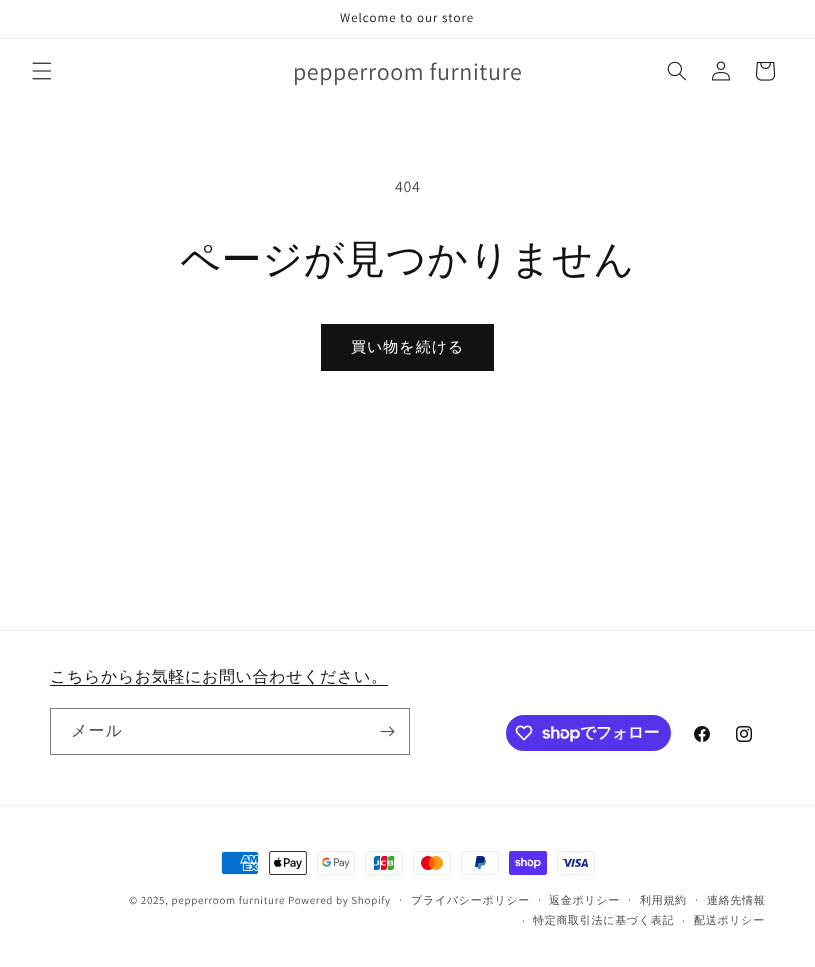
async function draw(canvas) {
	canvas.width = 815;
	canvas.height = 967;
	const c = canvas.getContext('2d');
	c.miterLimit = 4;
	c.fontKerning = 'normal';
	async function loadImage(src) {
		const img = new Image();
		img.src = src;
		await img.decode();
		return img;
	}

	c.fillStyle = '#fff';
	c.fillRect(0, 0, 815, 967);
	c.fillStyle = '#ececec';
	c.fillRect(0, 38, 815, 1);
	c.letterSpacing = '1px';
	c.font = '13px Assistant';
	c.fillStyle = '#121212';
	c.fillText('Welcome to our store', 340, 22);
	c.drawImage(await loadImage('img1.png'), 32, 62, 20, 18);
	c.letterSpacing = '0.6px';
	c.font = '24px Assistant';
	c.fillStyle = '#4d4d4d';
	c.fillText('pepperroom furniture', 293, 80);
	c.drawImage(await loadImage('img2.png'), 667, 61, 19, 20);
	c.drawImage(await loadImage('img3.png'), 712, 61, 18, 20);
	c.drawImage(await loadImage('img4.png'), 756, 62, 20, 19);
	c.font = '16px Assistant';
	c.fillText('404', 395, 192);
	c.font = '500 40px WenQuanYi Zen Hei';
	c.fillStyle = '#121212';
	c.fillText('ページが見つかりません', 180, 273);
	c.fillRect(321, 324, 173, 47);
	c.letterSpacing = '1px';
	c.font = '500 15px WenQuanYi Zen Hei';
	c.fillStyle = '#fff';
	c.fillText('買い物を続ける', 351, 352);
	c.fillStyle = '#ececec';
	c.fillRect(0, 630, 815, 1);
	c.letterSpacing = '0.6px';
	c.font = '500 16px WenQuanYi Zen Hei';
	c.fillStyle = '#121212';
	c.fillText('こちらからお気軽にお問い合わせください。', 50, 682);
	c.fillRect(50, 685, 338, 1);
	c.strokeStyle = '#7d7d7d';
	c.strokeRect(50.5, 708.5, 359, 46);
	c.letterSpacing = '1px';
	c.fillStyle = '#4d4d4d';
	c.fillText('メール', 71, 736);
	c.drawImage(await loadImage('img5.png'), 380, 726, 15, 11);
	c.fillStyle = '#5433eb';
	c.beginPath();
	c.roundRect(506, 715, 165, 36, 18);
	c.fill();
	c.drawImage(await loadImage('img6.png'), 515, 725, 18, 16);
	c.drawImage(await loadImage('img7.png'), 542, 726, 38, 16);
	c.letterSpacing = '-0.5px';
	c.font = 'bold 16px WenQuanYi Zen Hei';
	c.fillStyle = '#fff';
	c.fillText('でフォロー', 580, 738);
	c.drawImage(await loadImage('img8.png'), 694, 726, 16, 16);
	c.drawImage(await loadImage('img9.png'), 736, 726, 16, 16);
	c.fillStyle = '#ececec';
	c.fillRect(0, 805, 815, 1);
	c.drawImage(await loadImage('img10.png'), 221, 851, 38, 24);
	c.drawImage(await loadImage('img11.png'), 269, 851, 38, 24);
	c.drawImage(await loadImage('img12.png'), 317, 851, 38, 24);
	c.drawImage(await loadImage('img13.png'), 365, 851, 38, 24);
	c.drawImage(await loadImage('img14.png'), 413, 851, 38, 24);
	c.drawImage(await loadImage('img15.png'), 461, 851, 38, 24);
	c.drawImage(await loadImage('img16.png'), 509, 851, 38, 24);
	c.drawImage(await loadImage('img17.png'), 557, 851, 38, 24);
	c.letterSpacing = '0.7px';
	c.font = '11px Assistant';
	c.fillStyle = '#4d4d4d';
	c.fillText('© 2025, pepperroom furniture Powered by Shopify', 129, 904);
	c.font = '12px Assistant';
	c.fillText('·', 399, 904);
	c.font = '500 11px WenQuanYi Zen Hei';
	c.fillText('プライバシーポリシー', 411, 904);
	c.font = '12px Assistant';
	c.fillText('·', 538, 904);
	c.font = '500 11px WenQuanYi Zen Hei';
	c.fillText('返金ポリシー', 549, 904);
	c.font = '12px Assistant';
	c.fillText('·', 628, 904);
	c.font = '500 11px WenQuanYi Zen Hei';
	c.fillText('利用規約', 640, 904);
	c.font = '12px Assistant';
	c.fillText('·', 695, 904);
	c.font = '500 11px WenQuanYi Zen Hei';
	c.fillText('連絡先情報', 707, 904);
	c.font = '12px Assistant';
	c.fillText('·', 522, 925);
	c.font = '500 11px WenQuanYi Zen Hei';
	c.fillText('特定商取引法に基づく表記', 533, 924);
	c.font = '12px Assistant';
	c.fillText('·', 682, 925);
	c.font = '500 11px WenQuanYi Zen Hei';
	c.fillText('配送ポリシー', 694, 924);
}

draw(document.querySelector('canvas'));
